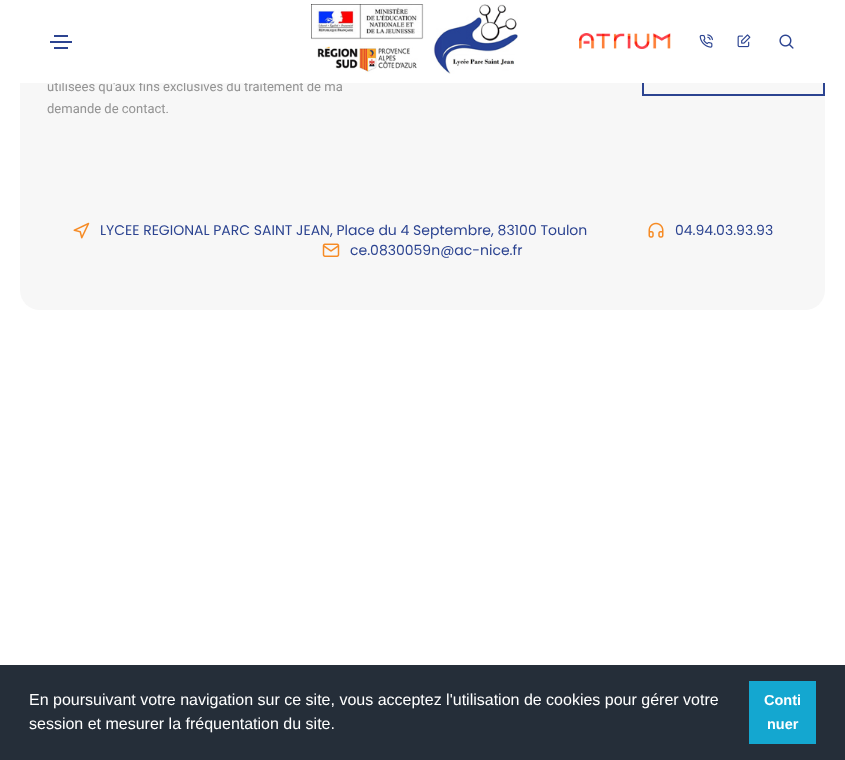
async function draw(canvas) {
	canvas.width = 845;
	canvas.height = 760;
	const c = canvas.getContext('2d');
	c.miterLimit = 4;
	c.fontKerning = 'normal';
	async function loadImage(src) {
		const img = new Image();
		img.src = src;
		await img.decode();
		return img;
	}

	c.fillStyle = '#fff';
	c.fillRect(0, 0, 845, 760);
	c.fillStyle = '#f7f7f7';
	c.beginPath();
	c.roundRect(20, -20, 805, 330, 20);
	c.fill();
	c.font = '13px Roboto';
	c.fillStyle = '#939393';
	c.fillText('utilisées qu\'aux fins exclusives du traitement de ma', 47, 91);
	c.strokeStyle = '#2c4491';
	c.lineWidth = 2;
	c.strokeRect(643, 55, 181, 40);
	for (const [x, y, w, h, color] of [
		[20, 0, 805, 83, '#fff'],
		[54, 35, 14, 2, '#2c4491'],
		[50, 41, 22, 2, '#2c4491'],
		[54, 47, 14, 2, '#2c4491'],
	]) {
		c.fillStyle = color;
		c.fillRect(x, y, w, h);
	}
	c.drawImage(await loadImage('img1.png'), 311, 4, 207, 70);
	c.drawImage(await loadImage('img2.png'), 579, 33, 92, 16);
	c.drawImage(await loadImage('img3.png'), 699, 34, 14, 14);
	c.drawImage(await loadImage('img4.png'), 737, 34, 14, 14);
	c.drawImage(await loadImage('img5.png'), 779, 34, 15, 15);
	c.fillStyle = '#939393';
	c.fillText('demande de contact.', 47, 113);
	c.drawImage(await loadImage('img6.png'), 73, 222, 17, 17);
	c.font = '14px Poppins';
	c.fillStyle = '#2c4491';
	c.fillText('LYCEE REGIONAL PARC SAINT JEAN, Place du 4 Septembre, 83100 Toulon', 100, 235);
	c.drawImage(await loadImage('img7.png'), 648, 222, 16, 16);
	c.fillText('04.94.03.93.93', 675, 235);
	c.drawImage(await loadImage('img8.png'), 322, 243, 18, 14);
	c.fillText('ce.0830059n@ac-nice.fr', 350, 255);
	c.fillStyle = '#252e39';
	c.fillRect(0, 665, 845, 95);
	c.font = '16px Liberation Sans';
	c.fillStyle = '#fff';
	c.fillText('En poursuivant votre navigation sur ce site, vous acceptez l\'utilisation de cookies pour gérer votre', 29, 705);
	c.fillText('session et mesurer la fréquentation du site.', 29, 729);
	c.fillStyle = '#14a7d0';
	c.fillRect(749, 681, 67, 63);
	c.font = 'bold 14.5px Liberation Sans';
	c.fillStyle = '#fff';
	c.fillText('Conti', 764, 705);
	c.fillText('nuer', 767, 729);
}

draw(document.querySelector('canvas'));
